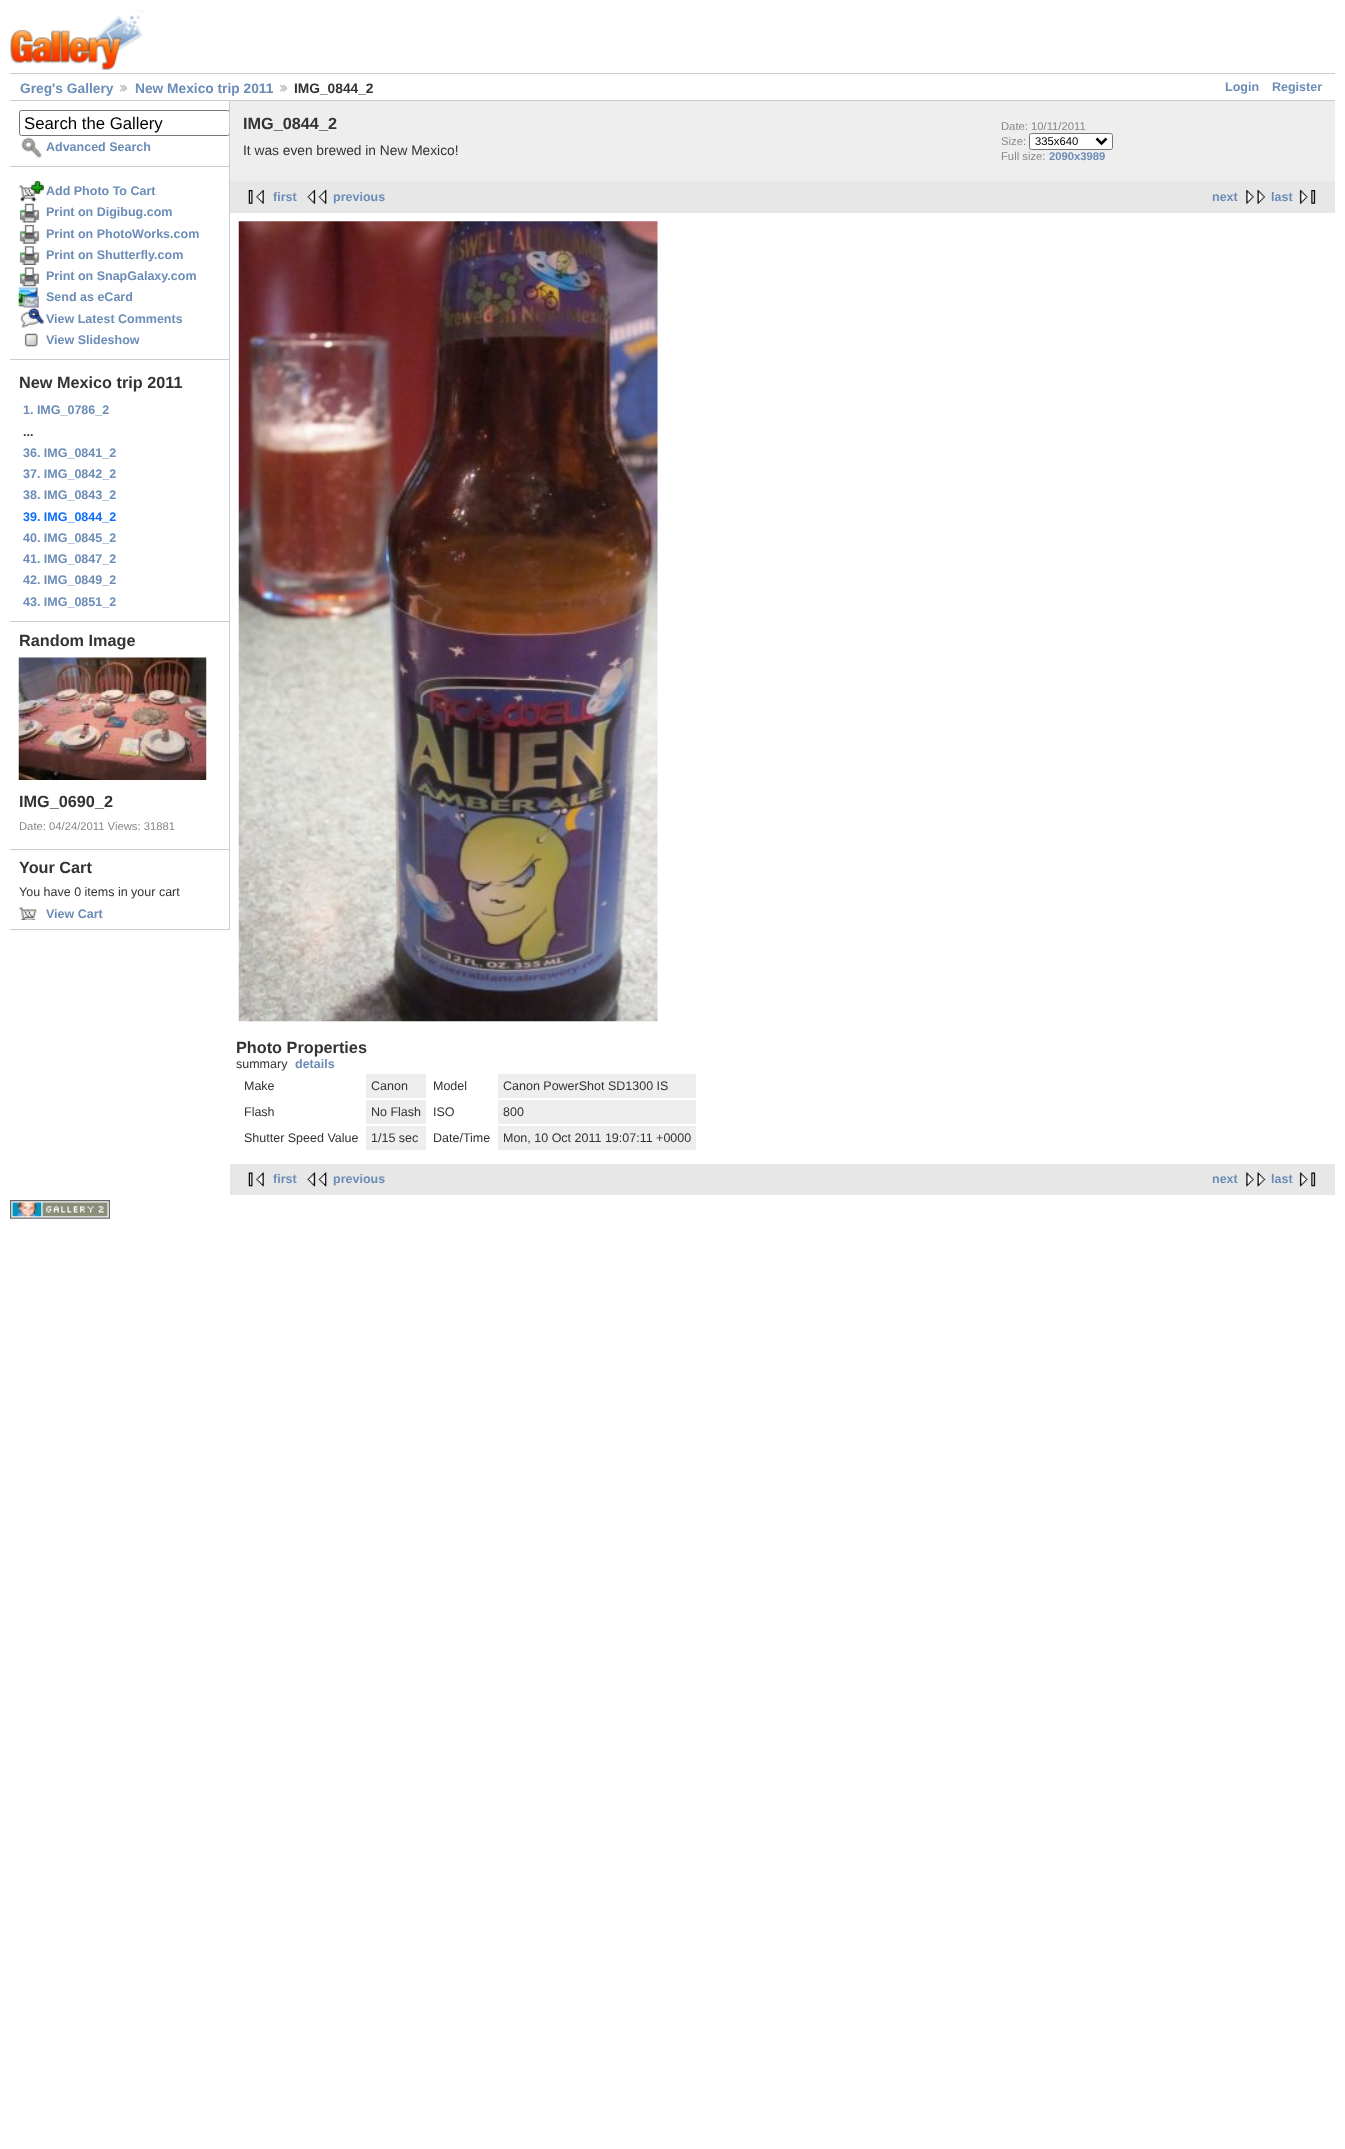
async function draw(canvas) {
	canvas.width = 1345;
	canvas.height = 2149;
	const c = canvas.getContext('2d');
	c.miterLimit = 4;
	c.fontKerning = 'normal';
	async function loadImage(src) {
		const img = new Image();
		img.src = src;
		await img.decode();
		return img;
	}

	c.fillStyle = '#fff';
	c.fillRect(0, 0, 1345, 2149);
	c.drawImage(await loadImage('img1.png'), 10, 10, 134, 60);
	c.fillStyle = '#ccc';
	c.fillRect(10, 73, 1325, 1);
	c.fillRect(10, 100, 1325, 1);
	c.font = 'bold 13.75px Liberation Sans';
	c.fillStyle = '#6b8cb7';
	c.fillText('Greg\'s Gallery', 20, 93);
	c.drawImage(await loadImage('img2.png'), 120, 84, 8, 8);
	c.fillText('New Mexico trip 2011', 135, 93);
	c.drawImage(await loadImage('img3.png'), 280, 84, 8, 8);
	c.fillStyle = '#333';
	c.fillText('IMG_0844_2', 294, 93);
	c.font = 'bold 12.5px Liberation Sans';
	c.fillStyle = '#6b8cb7';
	c.fillText('Login', 1225, 91);
	c.fillText('Register', 1272, 91);
	c.fillStyle = '#ccc';
	c.fillRect(229, 101, 1, 829);
	c.fillRect(10, 166, 219, 1);
	c.save();
	c.beginPath();
	c.rect(10, 101, 219, 829);
	c.clip();
	c.beginPath();
	c.roundRect(19.5, 110.5, 210, 25, 2);
	c.strokeStyle = '#767676';
	c.stroke();
	c.restore();
	c.font = '16.75px Liberation Sans';
	c.fillStyle = '#000';
	c.fillText('Search the Gallery', 24, 129);
	c.drawImage(await loadImage('img4.png'), 21, 137, 21, 21);
	c.font = 'bold 12.5px Liberation Sans';
	c.fillStyle = '#6b8cb7';
	c.fillText('Advanced Search', 46, 151);
	c.fillStyle = '#ccc';
	c.fillRect(10, 359, 219, 1);
	c.drawImage(await loadImage('img5.png'), 18, 181, 26, 21);
	c.fillStyle = '#6b8cb7';
	c.fillText('Add Photo To Cart', 46, 195);
	c.drawImage(await loadImage('img6.png'), 19, 203, 21, 20);
	c.fillText('Print on Digibug.com', 46, 216);
	c.drawImage(await loadImage('img7.png'), 19, 224, 21, 20);
	c.fillText('Print on PhotoWorks.com', 46, 238);
	c.drawImage(await loadImage('img8.png'), 19, 246, 21, 19);
	c.fillText('Print on Shutterfly.com', 46, 259);
	c.drawImage(await loadImage('img9.png'), 19, 267, 21, 20);
	c.fillText('Print on SnapGalaxy.com', 46, 280);
	c.drawImage(await loadImage('img10.png'), 18, 287, 21, 21);
	c.fillText('Send as eCard', 46, 301);
	c.drawImage(await loadImage('img11.png'), 20, 308, 24, 20);
	c.fillText('View Latest Comments', 46, 323);
	c.drawImage(await loadImage('img12.png'), 24, 333, 14, 14);
	c.fillText('View Slideshow', 46, 344);
	c.fillStyle = '#ccc';
	c.fillRect(10, 621, 219, 1);
	c.font = 'bold 16.25px Liberation Sans';
	c.fillStyle = '#333';
	c.fillText('New Mexico trip 2011', 19, 388);
	c.font = 'bold 12.5px Liberation Sans';
	c.fillStyle = '#6b8cb7';
	c.fillText('1. IMG_0786_2', 23, 414);
	c.fillStyle = '#333';
	c.fillText('...', 23, 436);
	c.fillStyle = '#6b8cb7';
	for (const [text, x, y] of [
		['36. IMG_0841_2', 23, 457],
		['37. IMG_0842_2', 23, 478],
		['38. IMG_0843_2', 23, 499],
	]) {
		c.fillText(text, x, y);
	}
	c.fillStyle = '#0b6cff';
	c.fillText('39. IMG_0844_2', 23, 521);
	c.fillStyle = '#6b8cb7';
	for (const [text, x, y] of [
		['40. IMG_0845_2', 23, 542],
		['41. IMG_0847_2', 23, 563],
		['42. IMG_0849_2', 23, 584],
		['43. IMG_0851_2', 23, 606],
	]) {
		c.fillText(text, x, y);
	}
	c.fillStyle = '#ccc';
	c.fillRect(10, 849, 219, 1);
	c.font = 'bold 16.25px Liberation Sans';
	c.fillStyle = '#333';
	c.fillText('Random Image', 19, 646);
	c.drawImage(await loadImage('img13.png'), 18, 657, 189, 123);
	c.fillText('IMG_0690_2', 19, 807);
	c.font = '11.25px Liberation Sans';
	c.fillStyle = '#888';
	c.fillText('Date: 04/24/2011 Views: 31881', 19, 830);
	c.fillStyle = '#ccc';
	c.fillRect(10, 929, 219, 1);
	c.font = 'bold 16.25px Liberation Sans';
	c.fillStyle = '#333';
	c.fillText('Your Cart', 19, 873);
	c.font = '12.5px Liberation Sans';
	c.fillText('You have 0 items in your cart', 19, 896);
	c.drawImage(await loadImage('img14.png'), 18, 906, 19, 14);
	c.font = 'bold 12.5px Liberation Sans';
	c.fillStyle = '#6b8cb7';
	c.fillText('View Cart', 46, 918);
	c.fillStyle = '#eee';
	c.fillRect(230, 101, 1105, 80);
	c.font = 'bold 16.25px Liberation Sans';
	c.fillStyle = '#333';
	c.fillText('IMG_0844_2', 243, 129);
	c.font = '13.75px Liberation Sans';
	c.fillText('It was even brewed in New Mexico!', 243, 155);
	c.font = '11.25px Liberation Sans';
	c.fillStyle = '#888';
	c.fillText('Date: 10/11/2011', 1001, 130);
	c.fillText('Size:', 1001, 145);
	c.fillStyle = '#fff';
	c.beginPath();
	c.roundRect(1029.5, 133.5, 83, 16, 2);
	c.fill();
	c.strokeStyle = '#767676';
	c.stroke();
	c.beginPath();
	c.moveTo(1096.5, 138.5);
	c.lineTo(1101.5, 143.5);
	c.lineTo(1106.5, 138.5);
	c.strokeStyle = '#000';
	c.lineWidth = 2.5;
	c.stroke();
	c.fillStyle = '#000';
	c.fillText('335x640', 1035, 145);
	c.fillStyle = '#888';
	c.fillText('Full size:', 1001, 160);
	c.font = 'bold 11.25px Liberation Sans';
	c.fillStyle = '#6b8cb7';
	c.fillText('2090x3989', 1049, 160);
	c.fillStyle = '#e7e7e7';
	c.fillRect(230, 181, 1105, 32);
	c.drawImage(await loadImage('img15.png'), 248, 190, 16, 14);
	c.font = 'bold 12.5px Liberation Sans';
	c.fillStyle = '#6b8cb7';
	c.fillText('first', 273, 201);
	c.drawImage(await loadImage('img16.png'), 307, 190, 20, 14);
	c.fillText('previous', 333, 201);
	c.fillText('next', 1212, 201);
	c.drawImage(await loadImage('img17.png'), 1246, 190, 20, 14);
	c.fillText('last', 1271, 201);
	c.drawImage(await loadImage('img18.png'), 1299, 190, 17, 14);
	c.drawImage(await loadImage('img19.png'), 238, 221, 420, 801);
	c.font = 'bold 16.25px Liberation Sans';
	c.fillStyle = '#333';
	c.fillText('Photo Properties', 236, 1053);
	c.font = '12.5px Liberation Sans';
	c.fillText('summary', 236, 1068);
	c.font = 'bold 12.5px Liberation Sans';
	c.fillStyle = '#6b8cb7';
	c.fillText('details', 295, 1068);
	c.font = '12.5px Liberation Sans';
	c.fillStyle = '#333';
	c.fillText('Make', 244, 1090);
	c.fillStyle = '#eee';
	c.fillRect(366, 1074, 60, 24);
	c.fillStyle = '#333';
	c.fillText('Canon', 371, 1090);
	c.fillText('Model', 433, 1090);
	c.fillStyle = '#eee';
	c.fillRect(498, 1074, 198, 24);
	c.fillStyle = '#333';
	c.fillText('Canon PowerShot SD1300 IS', 503, 1090);
	c.fillText('Flash', 244, 1116);
	c.fillStyle = '#eee';
	c.fillRect(366, 1100, 60, 24);
	c.fillStyle = '#333';
	c.fillText('No Flash', 371, 1116);
	c.fillText('ISO', 433, 1116);
	c.fillStyle = '#eee';
	c.fillRect(498, 1100, 198, 24);
	c.fillStyle = '#333';
	c.fillText('800', 503, 1116);
	c.fillText('Shutter Speed Value', 244, 1142);
	c.fillStyle = '#eee';
	c.fillRect(366, 1126, 60, 24);
	c.fillStyle = '#333';
	c.fillText('1/15 sec', 371, 1142);
	c.fillText('Date/Time', 433, 1142);
	c.fillStyle = '#eee';
	c.fillRect(498, 1126, 198, 24);
	c.fillStyle = '#333';
	c.fillText('Mon, 10 Oct 2011 19:07:11 +0000', 503, 1142);
	c.fillStyle = '#e7e7e7';
	c.fillRect(230, 1164, 1105, 31);
	c.drawImage(await loadImage('img20.png'), 248, 1172, 16, 15);
	c.font = 'bold 12.5px Liberation Sans';
	c.fillStyle = '#6b8cb7';
	c.fillText('first', 273, 1183);
	c.drawImage(await loadImage('img21.png'), 307, 1172, 20, 15);
	c.fillText('previous', 333, 1183);
	c.fillText('next', 1212, 1183);
	c.drawImage(await loadImage('img22.png'), 1246, 1172, 20, 15);
	c.fillText('last', 1271, 1183);
	c.drawImage(await loadImage('img23.png'), 1299, 1172, 17, 15);
	c.drawImage(await loadImage('img24.png'), 10, 1200, 100, 19);
}

draw(document.querySelector('canvas'));
